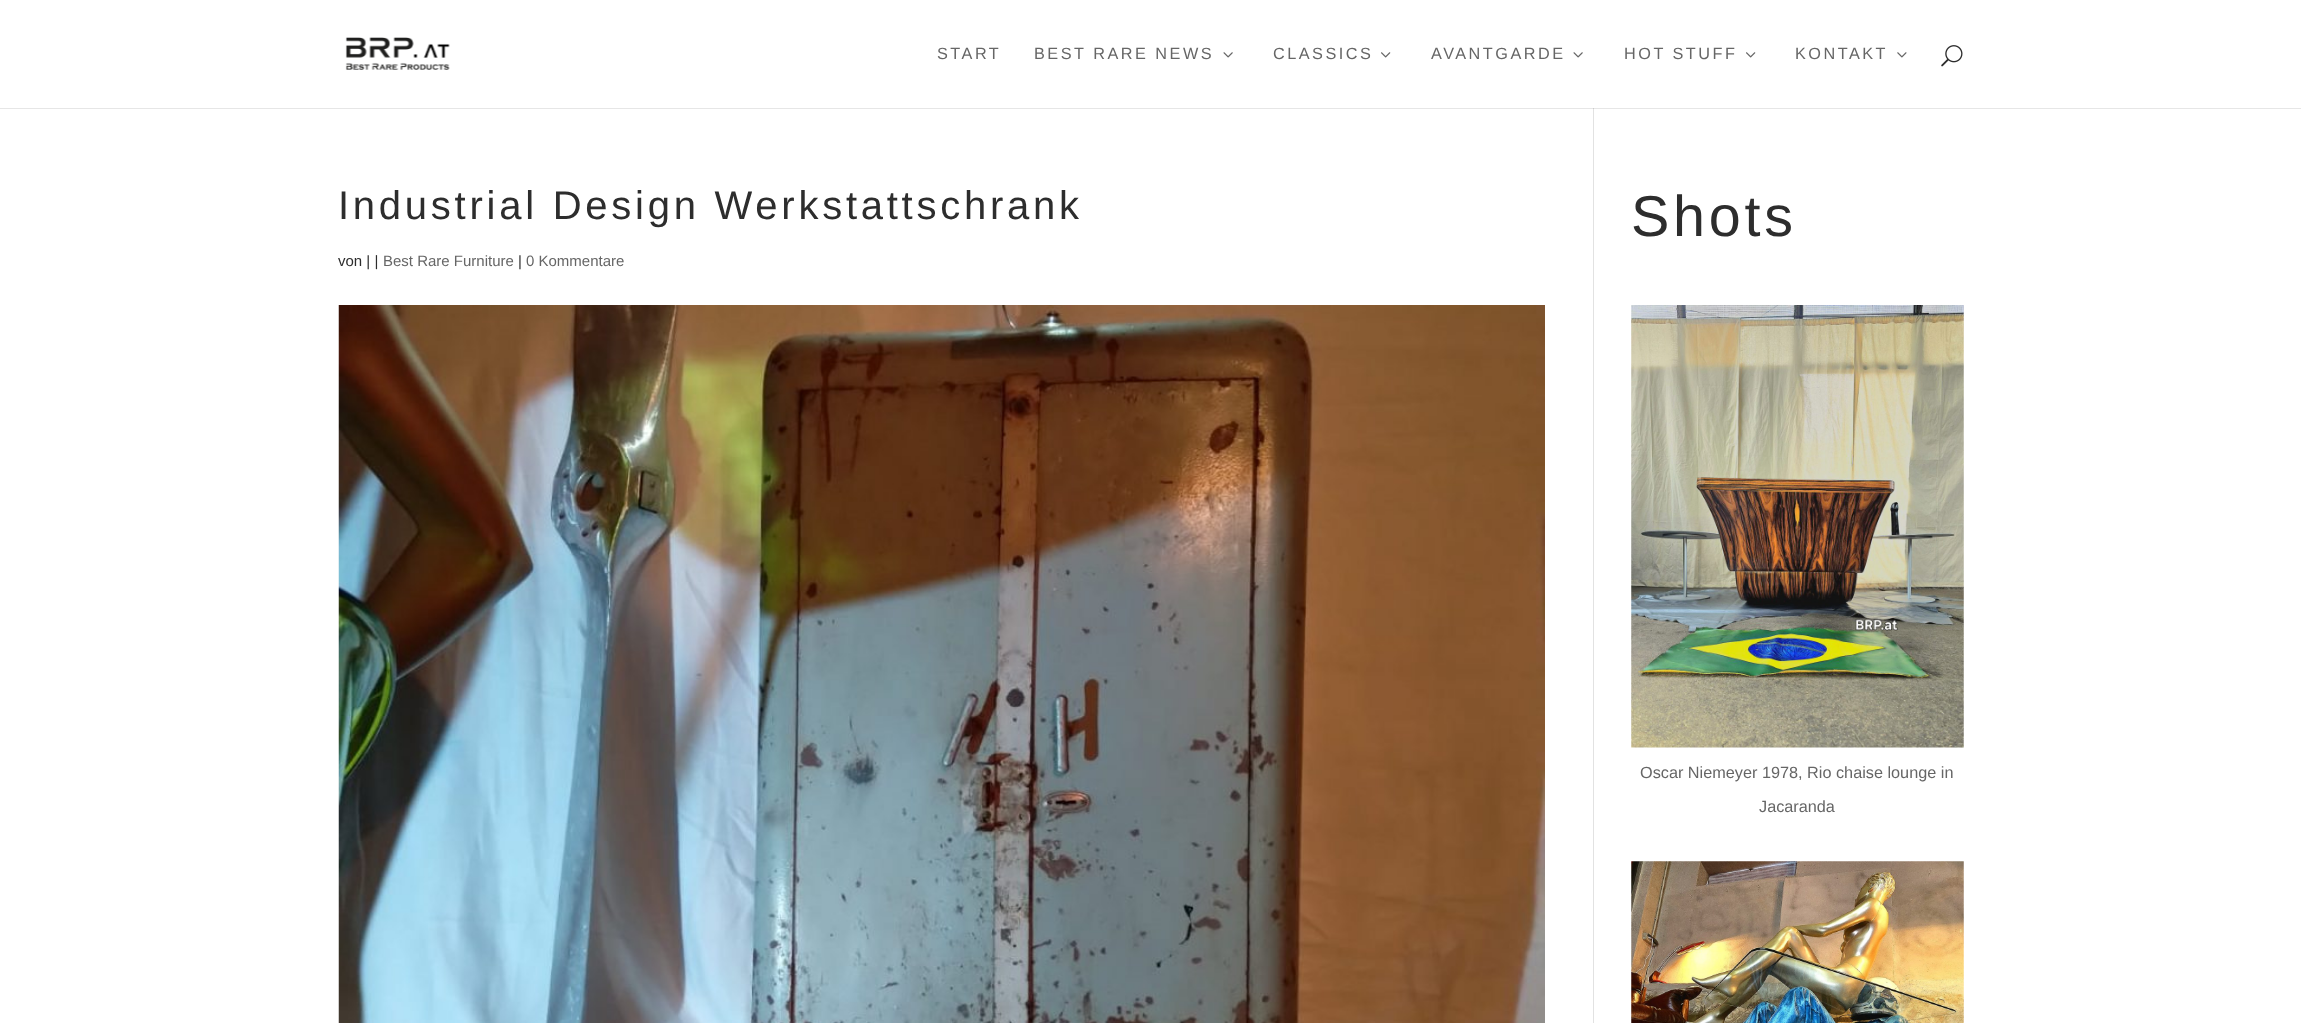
async function draw(canvas) {
	canvas.width = 2301;
	canvas.height = 1023;
	const c = canvas.getContext('2d');
	c.miterLimit = 4;
	c.fontKerning = 'normal';
	async function loadImage(src) {
		const img = new Image();
		img.src = src;
		await img.decode();
		return img;
	}

	c.fillStyle = '#fff';
	c.fillRect(0, 0, 2301, 1023);
	c.fillStyle = '#e6e6e6';
	c.fillRect(0, 108, 2301, 1);
	c.drawImage(await loadImage('img1.png'), 345, 37, 105, 33);
	c.letterSpacing = '2.5px';
	c.font = '16.25px Liberation Sans';
	c.fillStyle = '#666';
	c.fillText('START', 937, 59);
	c.fillText('BEST RARE NEWS', 1034, 59);
	c.drawImage(await loadImage('img2.png'), 1223, 52, 10, 6);
	c.fillText('CLASSICS', 1273, 59);
	c.drawImage(await loadImage('img3.png'), 1381, 52, 10, 6);
	c.fillText('AVANTGARDE', 1431, 59);
	c.drawImage(await loadImage('img2.png'), 1573, 52, 10, 6);
	c.fillText('HOT STUFF', 1624, 59);
	c.drawImage(await loadImage('img3.png'), 1746, 52, 10, 6);
	c.fillText('KONTAKT', 1795, 59);
	c.drawImage(await loadImage('img4.png'), 1897, 52, 10, 6);
	c.drawImage(await loadImage('img5.png'), 1941, 45, 22, 22);
	c.fillStyle = '#e2e2e2';
	c.fillRect(1593, 108, 1, 915);
	c.fillStyle = '#cbcbcb';
	c.fillRect(1593, 108, 1, 1);
	c.letterSpacing = '3.75px';
	c.font = '40px Liberation Sans';
	c.fillStyle = '#2d2d2d';
	c.fillText('Industrial Design Werkstattschrank', 338, 219);
	c.letterSpacing = '0px';
	c.font = '15px Liberation Sans';
	c.fillText('von | |', 338, 266);
	c.fillStyle = '#666';
	c.fillText('Best Rare Furniture', 383, 266);
	c.fillStyle = '#2d2d2d';
	c.fillText('|', 518, 266);
	c.fillStyle = '#666';
	c.fillText('0 Kommentare', 526, 266);
	c.drawImage(await loadImage('img6.png'), 338, 305, 1207, 718);
	c.letterSpacing = '3.75px';
	c.font = '57.5px Liberation Sans';
	c.fillStyle = '#2d2d2d';
	c.fillText('Shots', 1631, 236);
	c.drawImage(await loadImage('img7.png'), 1631, 305, 333, 443);
	c.letterSpacing = '0px';
	c.font = '16.25px Liberation Sans';
	c.fillStyle = '#666';
	c.fillText('Oscar Niemeyer 1978, Rio chaise lounge in', 1640, 778);
	c.fillText('Jacaranda', 1759, 812);
	c.drawImage(await loadImage('img8.png'), 1631, 861, 333, 162);
}

draw(document.querySelector('canvas'));
